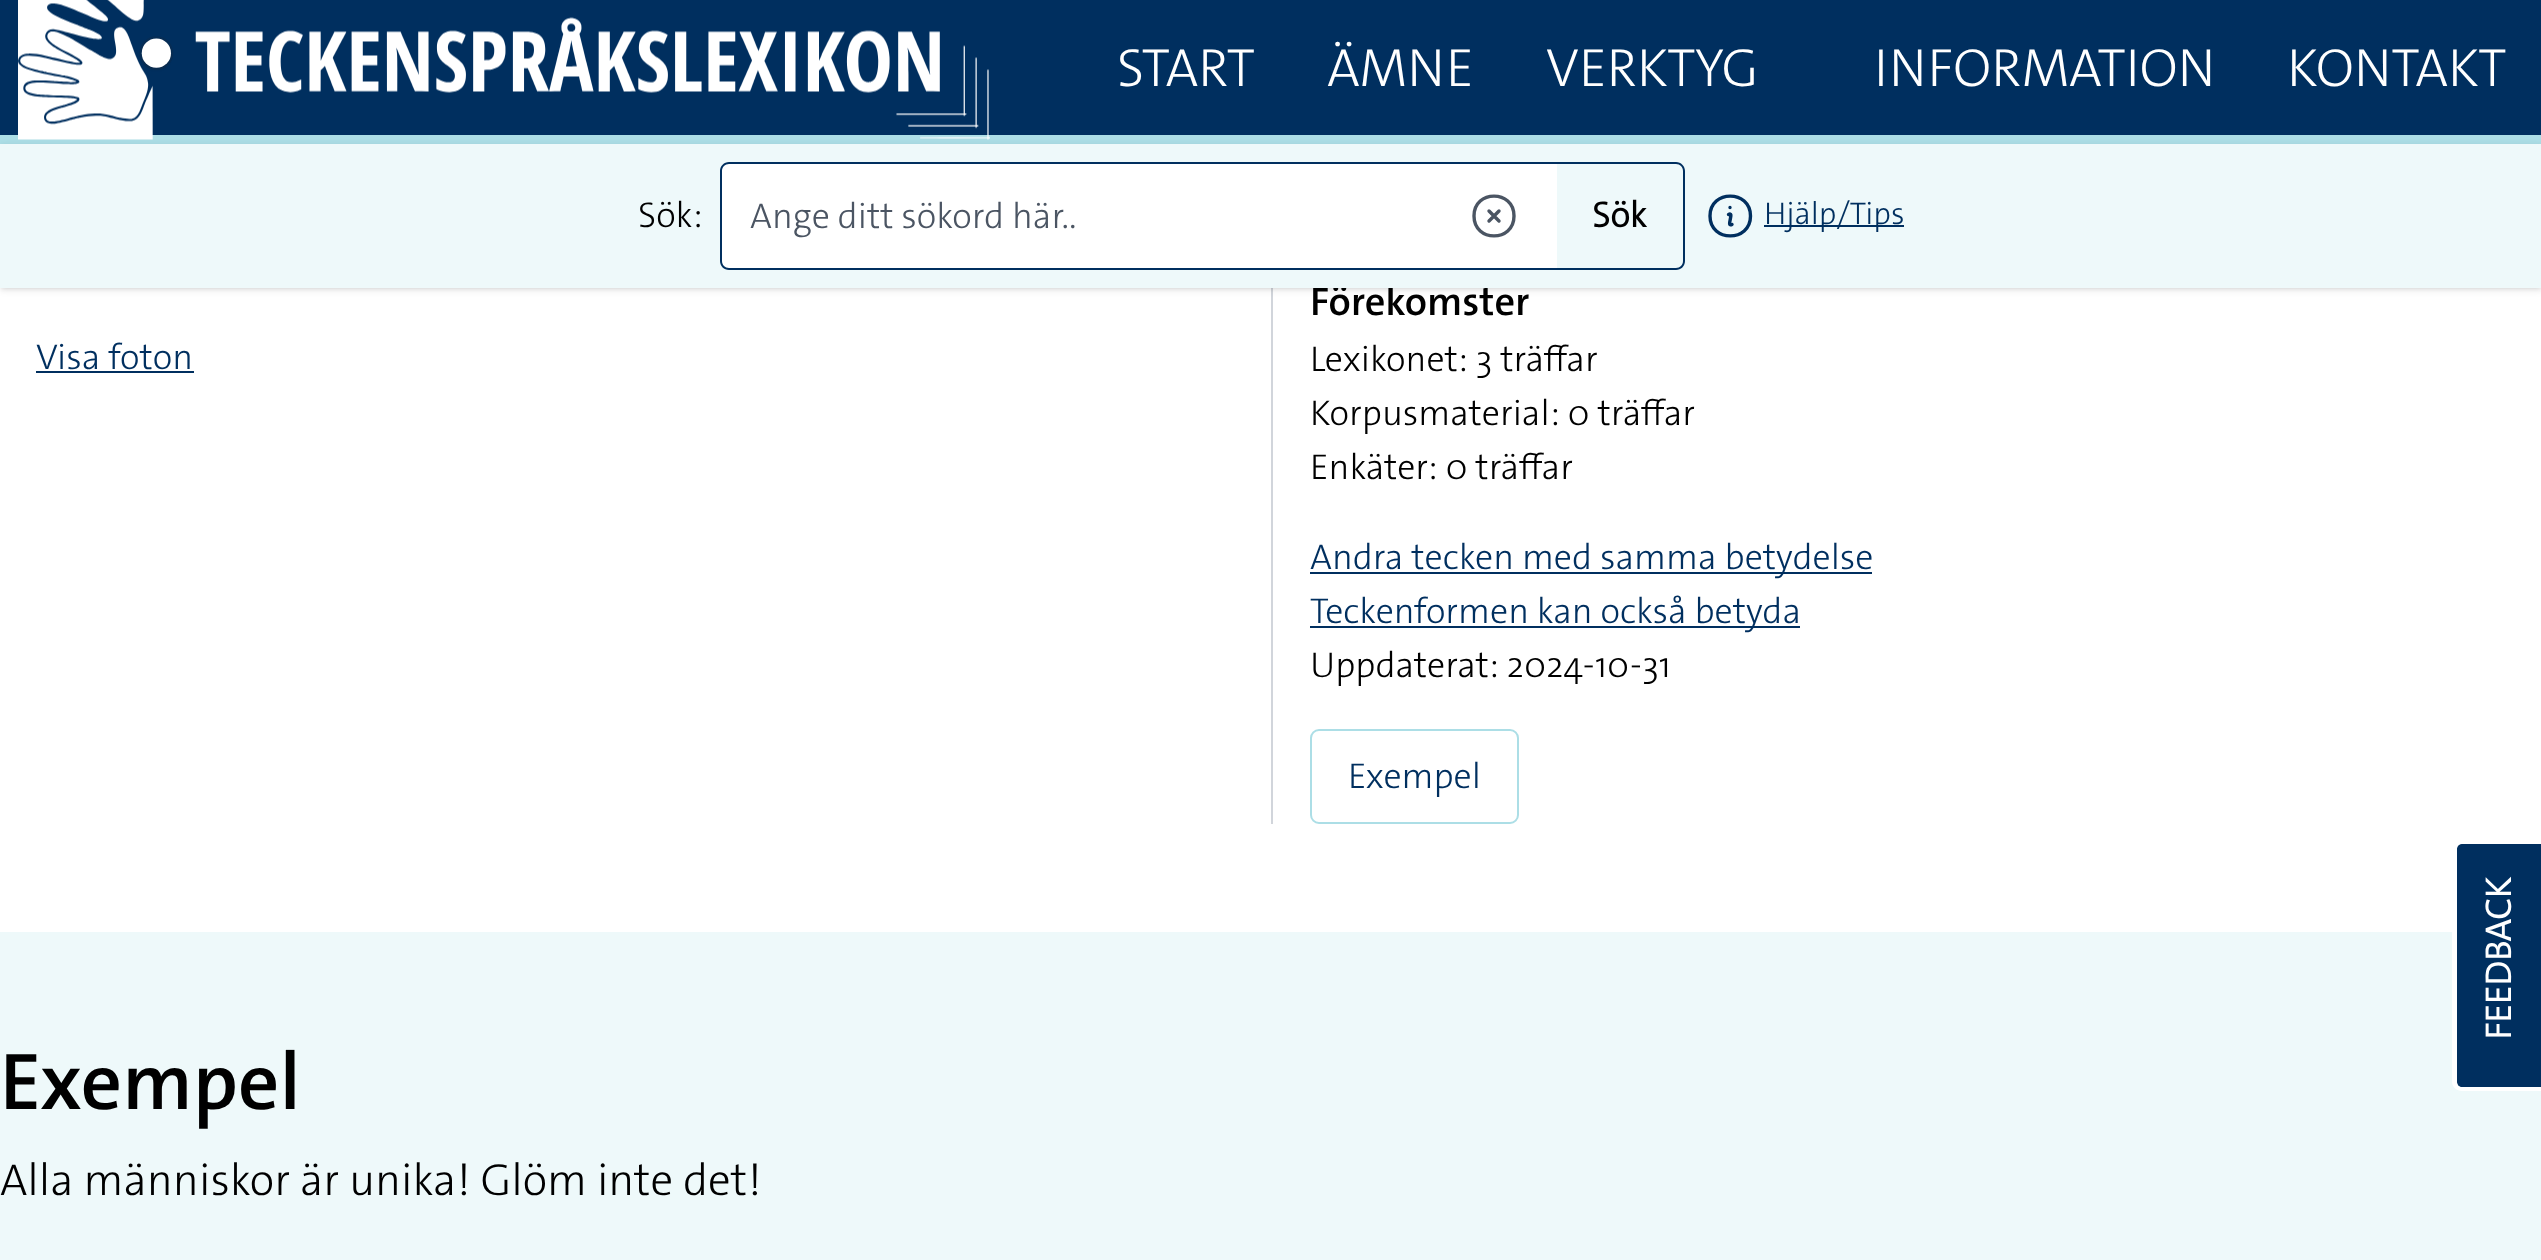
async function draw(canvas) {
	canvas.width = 2541;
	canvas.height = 1260;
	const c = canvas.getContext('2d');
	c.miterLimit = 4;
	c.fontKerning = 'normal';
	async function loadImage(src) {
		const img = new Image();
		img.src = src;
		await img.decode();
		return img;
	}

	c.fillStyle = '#fff';
	c.fillRect(0, 0, 2541, 1260);
	c.fillStyle = '#002f5f';
	c.fillRect(0, 0, 2541, 135);
	c.fillStyle = '#acdee6';
	c.fillRect(0, 135, 2541, 9);
	c.drawImage(await loadImage('img1.png'), 18, 0, 972, 140);
	c.font = '300 54px "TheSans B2"';
	c.fillStyle = '#fff';
	for (const [text, x, y] of [
		['START', 1117, 86],
		['ÄMNE', 1327, 86],
		['VERKTYG', 1546, 86],
		['INFORMATION', 1874, 86],
		['KONTAKT', 2287, 86],
	]) {
		c.fillText(text, x, y);
	}
	c.fillStyle = '#d1d5db';
	c.fillRect(1271, 288, 2, 536);
	c.fillStyle = '#0000001a';
	c.filter = 'blur(2px)';
	c.beginPath();
	c.rect(2, 149, 2538, 139);
	c.fill();
	c.filter = 'none';
	c.filter = 'blur(3.5px)';
	c.beginPath();
	c.rect(0, 146, 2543, 144);
	c.fill();
	c.filter = 'none';
	c.font = '600 40.5px "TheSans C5"';
	c.fillStyle = '#000';
	c.fillText('Förekomster', 1310, 315);
	c.fillStyle = '#eef9fa';
	c.fillRect(0, 144, 2541, 144);
	c.font = '300 36px "TheSans B2"';
	c.fillStyle = '#000';
	c.fillText('Sök:', 638, 227);
	c.fillStyle = '#fff';
	c.beginPath();
	c.roundRect(722, 164, 835, 104, [7, 0, 0, 7]);
	c.fill();
	c.fillStyle = '#002f5f';
	c.beginPath();
	c.moveTo(729, 162);
	c.lineTo(1557, 162);
	c.lineTo(1557, 270);
	c.lineTo(729, 270);
	c.bezierCurveTo(724, 270, 720, 266, 720, 261);
	c.lineTo(720, 171);
	c.bezierCurveTo(720, 166, 724, 162, 729, 162);
	c.closePath();
	c.moveTo(729, 164);
	c.lineTo(1557, 164);
	c.lineTo(1557, 268);
	c.lineTo(729, 268);
	c.bezierCurveTo(725, 268, 722, 265, 722, 261);
	c.lineTo(722, 171);
	c.bezierCurveTo(722, 167, 725, 164, 729, 164);
	c.closePath();
	c.fill('evenodd');
	c.fillStyle = '#4b5563';
	c.fillText('Ange ditt sökord här..', 750, 228);
	c.beginPath();
	c.moveTo(1489, 211);
	c.lineTo(1499, 221);
	c.moveTo(1499, 211);
	c.lineTo(1489, 221);
	c.moveTo(1514, 216);
	c.bezierCurveTo(1514, 242.5, 1474, 242.5, 1474, 216);
	c.bezierCurveTo(1474, 189.5, 1514, 189.5, 1514, 216);
	c.closePath();
	c.strokeStyle = '#4b5563';
	c.lineWidth = 3.4;
	c.lineCap = 'round';
	c.lineJoin = 'round';
	c.stroke();
	c.fillStyle = '#002f5f';
	c.beginPath();
	c.moveTo(1557, 162);
	c.lineTo(1676, 162);
	c.bezierCurveTo(1681, 162, 1685, 166, 1685, 171);
	c.lineTo(1685, 261);
	c.bezierCurveTo(1685, 266, 1681, 270, 1676, 270);
	c.lineTo(1557, 270);
	c.closePath();
	c.moveTo(1557, 164);
	c.lineTo(1676, 164);
	c.bezierCurveTo(1680, 164, 1683, 167, 1683, 171);
	c.lineTo(1683, 261);
	c.bezierCurveTo(1683, 265, 1680, 268, 1676, 268);
	c.lineTo(1557, 268);
	c.closePath();
	c.fill('evenodd');
	c.font = 'bold 36px "TheSans B2"';
	c.fillStyle = '#000';
	c.fillText('Sök', 1592, 227);
	c.beginPath();
	c.moveTo(1728.5, 214.5);
	c.bezierCurveTo(1735, 211, 1725.5, 227.5, 1732, 224.5);
	c.moveTo(1750.5, 216);
	c.bezierCurveTo(1750.5, 242.5, 1710, 242.5, 1710, 216);
	c.bezierCurveTo(1710, 189.5, 1750.5, 189.5, 1750.5, 216);
	c.closePath();
	c.moveTo(1730, 207.5);
	c.lineTo(1730, 207.5);
	c.closePath();
	c.strokeStyle = '#002f5f';
	c.stroke();
	c.fillStyle = '#002f5f';
	c.fillRect(1764, 225, 140, 2);
	c.font = '300 31.5px "TheSans B2"';
	c.fillText('Hjälp/Tips', 1764, 224);
	c.font = '300 36px "TheSans B2"';
	c.fillText('Visa foton', 36, 369);
	c.fillRect(36, 371, 158, 2);
	c.fillStyle = '#000';
	for (const [text, x, y] of [
		['Lexikonet: 3 träffar', 1310, 371],
		['Korpusmaterial: 0 träffar', 1310, 425],
		['Enkäter: 0 träffar', 1310, 479],
	]) {
		c.fillText(text, x, y);
	}
	c.fillStyle = '#002f5f';
	c.fillRect(1310, 572, 562, 2);
	c.fillText('Andra tecken med samma betydelse', 1310, 569);
	c.fillRect(1310, 626, 490, 2);
	c.fillText('Teckenformen kan också betyda', 1310, 623);
	c.fillStyle = '#000';
	c.fillText('Uppdaterat: 2024-10-31', 1310, 677);
	c.beginPath();
	c.roundRect(1311, 730, 207, 93, 8);
	c.strokeStyle = '#acdee6';
	c.lineWidth = 2;
	c.lineJoin = 'miter';
	c.stroke();
	c.fillStyle = '#002f5f';
	c.fillText('Exempel', 1348, 788);
	c.fillStyle = '#eef9fa';
	c.fillRect(0, 932, 2541, 328);
	c.fillStyle = '#002f5f';
	c.beginPath();
	c.moveTo(2462, 844);
	c.lineTo(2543, 844);
	c.lineTo(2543, 1087);
	c.lineTo(2462, 1087);
	c.bezierCurveTo(2459, 1087, 2457, 1085, 2457, 1082);
	c.lineTo(2457, 849);
	c.bezierCurveTo(2457, 846, 2459, 844, 2462, 844);
	c.closePath();
	c.fill();
	c.fillStyle = '#fff';
	c.beginPath();
	c.moveTo(2462, 839);
	c.lineTo(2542, 839);
	c.lineTo(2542, 1091);
	c.lineTo(2462, 1091);
	c.bezierCurveTo(2457, 1091, 2452, 1087, 2452, 1082);
	c.lineTo(2452, 848);
	c.bezierCurveTo(2452, 843, 2457, 839, 2462, 839);
	c.closePath();
	c.moveTo(2462, 844);
	c.lineTo(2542, 844);
	c.lineTo(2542, 1087);
	c.lineTo(2462, 1087);
	c.bezierCurveTo(2459, 1087, 2457, 1085, 2457, 1082);
	c.lineTo(2457, 848);
	c.bezierCurveTo(2457, 846, 2459, 844, 2462, 844);
	c.closePath();
	c.fill('evenodd');
	c.font = 'bold 36px "TheSans B2"';
	c.save();
	c.translate(2511, 1040);
	c.rotate(-90 * Math.PI / 180);
	c.fillText('FEEDBACK', 0, 0);
	c.restore();
	c.font = '600 81px "TheSans C5"';
	c.fillStyle = '#000';
	c.fillText('Exempel', 0, 1109);
	c.font = '300 45px "TheSans B2"';
	c.fillText('Alla människor är unika! Glöm inte det!', 0, 1195);
}

draw(document.querySelector('canvas'));
